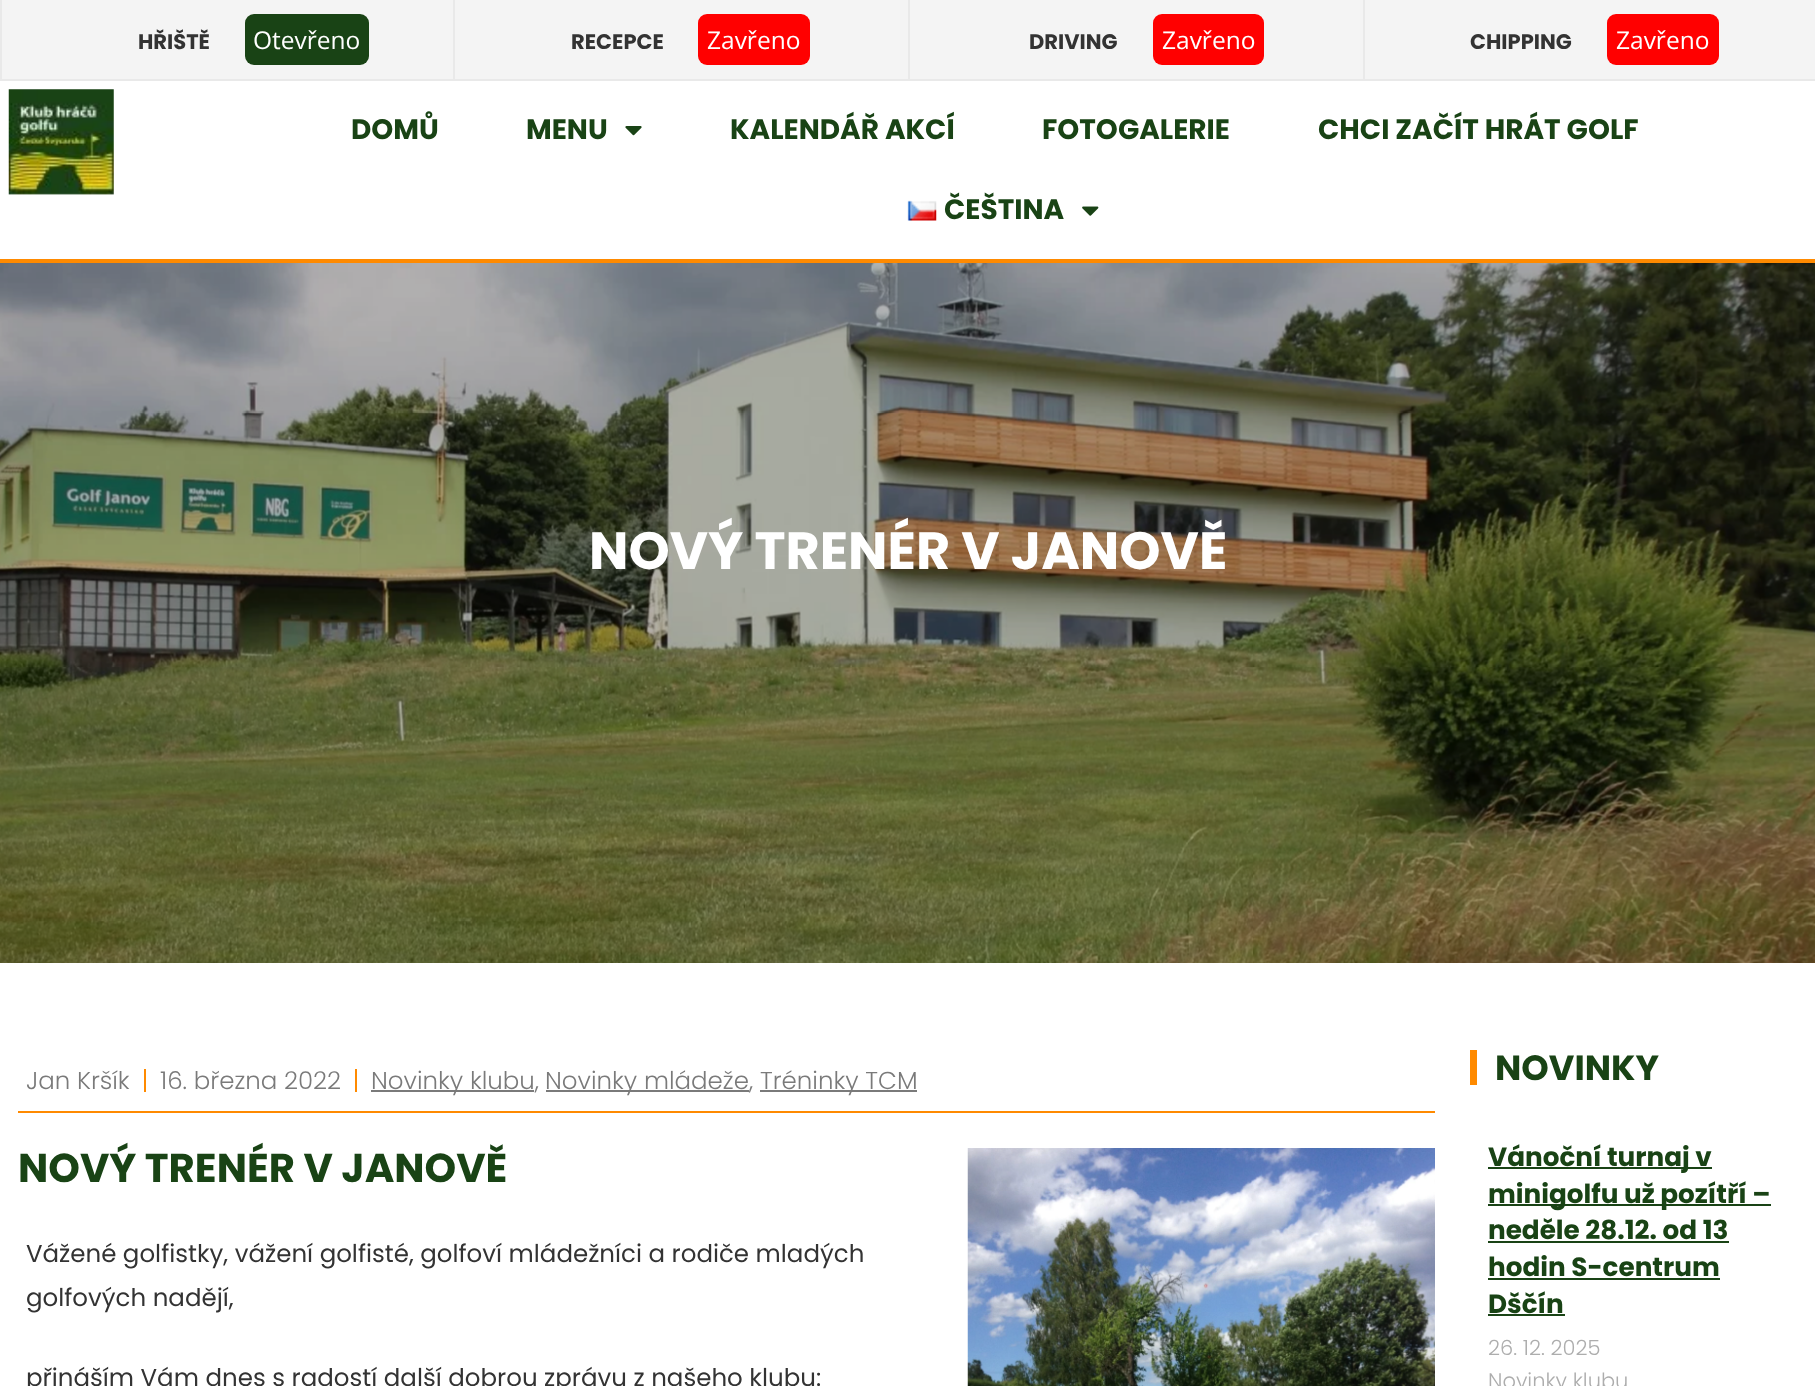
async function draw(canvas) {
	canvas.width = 1815;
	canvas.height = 1386;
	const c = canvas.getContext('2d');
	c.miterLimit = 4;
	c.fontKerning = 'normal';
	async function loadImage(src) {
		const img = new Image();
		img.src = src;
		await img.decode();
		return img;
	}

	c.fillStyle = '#fff';
	c.fillRect(0, 0, 1815, 1386);
	for (const [x, y, w, h, color] of [
		[0, 79, 1815, 2, '#e9e9e9'],
		[2, 0, 1813, 79, '#f4f4f4'],
		[0, 0, 2, 79, '#e9e9e9'],
	]) {
		c.fillStyle = color;
		c.fillRect(x, y, w, h);
	}
	c.font = 'bold 21px Poppins';
	c.fillStyle = '#333';
	c.fillText('HŘIŠTĚ', 138, 49);
	c.fillStyle = '#e9e9e9';
	c.fillRect(453, 0, 2, 79);
	c.fillStyle = '#194315';
	c.beginPath();
	c.roundRect(245, 14, 124, 51, 9);
	c.fill();
	c.font = '24.5px Open Sans';
	c.fillStyle = '#fff';
	c.fillText('Otevřeno', 253, 49);
	c.font = 'bold 21px Poppins';
	c.fillStyle = '#333';
	c.fillText('RECEPCE', 571, 49);
	c.fillStyle = '#f00';
	c.beginPath();
	c.roundRect(698, 14, 112, 51, 9);
	c.fill();
	c.font = '24.5px Open Sans';
	c.fillStyle = '#fff';
	c.fillText('Zavřeno', 707, 49);
	c.fillStyle = '#e9e9e9';
	c.fillRect(908, 0, 2, 79);
	c.font = 'bold 21px Poppins';
	c.fillStyle = '#333';
	c.fillText('DRIVING', 1029, 49);
	c.fillStyle = '#f00';
	c.beginPath();
	c.roundRect(1153, 14, 111, 51, 9);
	c.fill();
	c.font = '24.5px Open Sans';
	c.fillStyle = '#fff';
	c.fillText('Zavřeno', 1162, 49);
	c.fillStyle = '#e9e9e9';
	c.fillRect(1363, 0, 2, 79);
	c.font = 'bold 21px Poppins';
	c.fillStyle = '#333';
	c.fillText('CHIPPING', 1470, 49);
	c.fillStyle = '#f00';
	c.beginPath();
	c.roundRect(1607, 14, 112, 51, 9);
	c.fill();
	c.font = '24.5px Open Sans';
	c.fillStyle = '#fff';
	c.fillText('Zavřeno', 1616, 49);
	c.fillStyle = '#ff8a00';
	c.fillRect(0, 259, 1815, 4);
	c.drawImage(await loadImage('img1.png'), 8, 89, 106, 106);
	c.font = 'bold 28px Poppins';
	c.fillStyle = '#194315';
	c.fillText('DOMŮ', 351, 139);
	c.fillText('MENU', 526, 139);
	c.drawImage(await loadImage('img2.png'), 625, 126, 17, 10);
	for (const [text, x, y] of [
		['KALENDÁŘ AKCÍ', 730, 139],
		['FOTOGALERIE', 1042, 139],
		['CHCI ZAČÍT HRÁT GOLF', 1318, 139],
	]) {
		c.fillText(text, x, y);
	}
	c.drawImage(await loadImage('img3.png'), 907, 200, 30, 21);
	c.fillText('ČEŠTINA', 944, 219);
	c.drawImage(await loadImage('img4.png'), 1082, 206, 17, 10);
	c.drawImage(await loadImage('img5.png'), 0, 263, 1815, 700);
	c.font = 'bold 52.5px Poppins';
	c.fillStyle = '#fff';
	c.fillText('NOVÝ TRENÉR V JANOVĚ', 589, 569);
	c.fillStyle = '#ff8a00';
	c.fillRect(18, 1111, 1417, 2);
	c.font = '300 24.5px Poppins';
	c.fillStyle = '#7a7a7a';
	c.fillText('Jan Kršík', 26, 1089);
	c.fillStyle = '#ff8a00';
	c.fillRect(144, 1069, 2, 23);
	c.fillStyle = '#7a7a7a';
	c.fillText('16. března 2022', 160, 1089);
	c.fillStyle = '#ff8a00';
	c.fillRect(355, 1069, 2, 23);
	c.fillStyle = '#7a7a7a';
	c.fillRect(371, 1090, 163, 2);
	c.fillText('Novinky klubu,', 371, 1089);
	c.fillRect(546, 1090, 203, 2);
	c.fillText('Novinky mládeže,', 545, 1089);
	c.fillRect(760, 1090, 157, 2);
	c.fillText('Tréninky TCM', 760, 1089);
	c.font = 'bold 40.25px Poppins';
	c.fillStyle = '#194315';
	c.fillText('NOVÝ TRENÉR V JANOVĚ', 18, 1182);
	c.font = '24.5px Poppins';
	c.fillStyle = '#333';
	for (const [text, x, y] of [
		['Vážené golfistky, vážení golfisté, golfoví mládežníci a rodiče mladých', 26, 1262],
		['golfových nadějí,', 26, 1306],
		['přináším Vám dnes s radostí další dobrou zprávu z našeho klubu:', 26, 1386],
	]) {
		c.fillText(text, x, y);
	}
	c.drawImage(await loadImage('img6.png'), 967, 1148, 468, 238);
	c.fillStyle = '#ff8a00';
	c.fillRect(1470, 1050, 7, 35);
	c.font = 'bold 35px Poppins';
	c.fillStyle = '#194315';
	c.fillText('NOVINKY', 1495, 1080);
	c.fillRect(1488, 1167, 224, 2);
	c.font = 'bold 26.25px Poppins';
	c.fillText('Vánoční turnaj v', 1488, 1166);
	c.fillRect(1488, 1204, 283, 2);
	c.fillText('minigolfu už pozítří –', 1488, 1203);
	c.fillText('neděle 28.12. od 13', 1488, 1239);
	c.fillRect(1488, 1241, 241, 2);
	c.fillText('hodin S-centrum', 1488, 1276);
	c.fillRect(1488, 1278, 232, 2);
	c.fillText('Dščín', 1488, 1313);
	c.fillRect(1488, 1314, 77, 2);
	c.font = '300 21px Poppins';
	c.fillStyle = '#adadad';
	c.fillText('26. 12. 2025', 1488, 1355);
	c.fillText('Novinky klubu', 1488, 1388);
}

draw(document.querySelector('canvas'));
